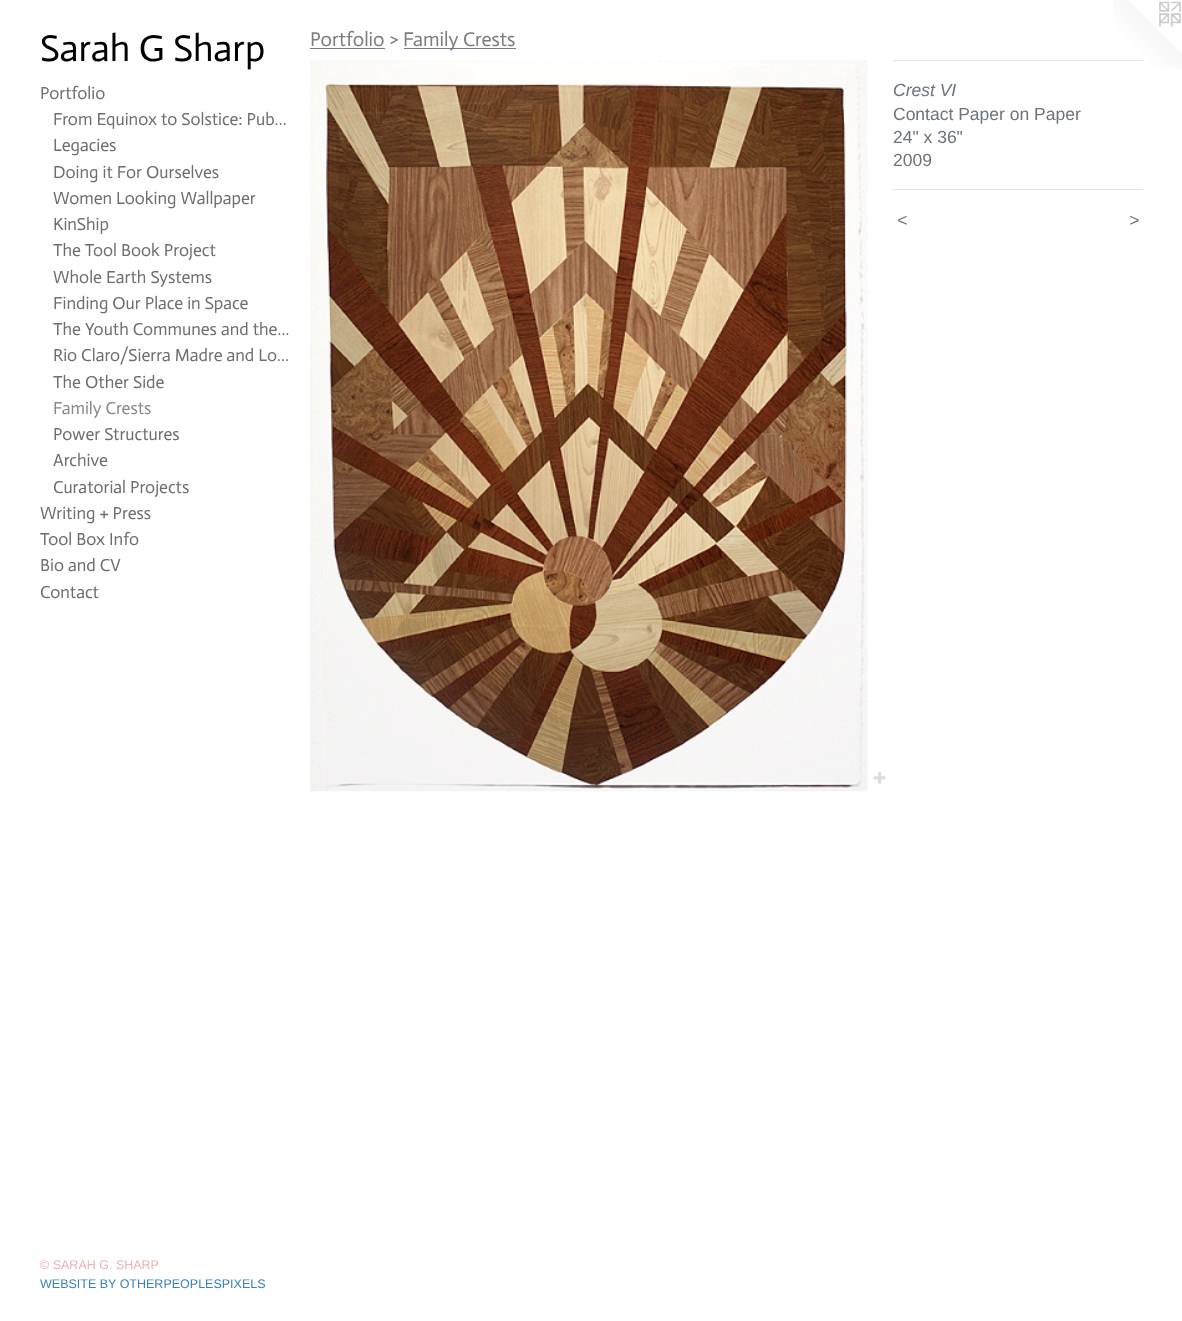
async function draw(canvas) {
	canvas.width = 1182;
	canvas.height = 1321;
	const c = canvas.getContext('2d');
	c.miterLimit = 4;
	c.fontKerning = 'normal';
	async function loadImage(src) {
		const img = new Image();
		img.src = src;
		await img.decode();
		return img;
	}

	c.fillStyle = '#fff';
	c.fillRect(0, 0, 1182, 1321);
	c.font = '37.5px Actor';
	c.fillStyle = '#000';
	c.fillText('Sarah G Sharp', 40, 61);
	c.font = '17.5px Actor';
	c.fillStyle = '#6e6e6e';
	for (const [text, x, y] of [
		['Portfolio', 40, 99],
		['From Equinox to Solstice: Pub…', 53, 125],
		['Legacies', 53, 151],
		['Doing it For Ourselves', 53, 178],
		['Women Looking Wallpaper', 53, 204],
		['KinShip', 53, 230],
		['The Tool Book Project', 53, 256],
		['Whole Earth Systems', 53, 283],
		['Finding Our Place in Space', 53, 309],
		['The Youth Communes and the…', 53, 335],
		['Rio Claro/Sierra Madre and Lo…', 53, 361],
		['The Other Side', 53, 388],
	]) {
		c.fillText(text, x, y);
	}
	c.fillStyle = '#888';
	c.fillText('Family Crests', 53, 414);
	c.fillStyle = '#6e6e6e';
	for (const [text, x, y] of [
		['Power Structures', 53, 440],
		['Archive', 53, 466],
		['Curatorial Projects', 53, 493],
		['Writing + Press', 40, 519],
		['Tool Box Info', 40, 545],
		['Bio and CV', 40, 571],
		['Contact', 40, 598],
	]) {
		c.fillText(text, x, y);
	}
	c.font = '12.5px Liberation Sans';
	c.fillStyle = '#eab3b3';
	c.fillText('© SARAH G. SHARP', 40, 1269);
	c.fillStyle = '#3a82b6';
	c.fillText('WEBSITE BY OTHERPEOPLESPIXELS', 40, 1288);
	c.font = '20px Actor';
	c.fillStyle = '#7a7d7f';
	c.fillText('Portfolio >', 310, 46);
	c.fillRect(310, 48, 75, 1);
	c.fillRect(404, 48, 112, 1);
	c.fillText('Family Crests', 403, 46);
	c.drawImage(await loadImage('img1.png'), 310, 60, 558, 732);
	c.drawImage(await loadImage('img2.png'), 873, 772, 13, 12);
	c.drawImage(await loadImage('img3.png'), 1113, 0, 69, 69);
	c.fillStyle = '#e2e3e4';
	c.fillRect(893, 60, 250, 1);
	c.font = 'italic 17.5px Liberation Sans';
	c.fillStyle = '#6c737a';
	c.fillText('Crest VI', 893, 96);
	c.font = '17.5px Liberation Sans';
	for (const [text, x, y] of [
		['Contact Paper on Paper', 893, 120],
		['24" x 36"', 893, 143],
		['2009', 893, 166],
	]) {
		c.fillText(text, x, y);
	}
	c.fillStyle = '#e2e3e4';
	c.fillRect(893, 189, 250, 1);
	c.letterSpacing = '1px';
	c.font = 'italic 17.5px Liberation Sans';
	c.fillStyle = '#6c737a';
	c.fillText('<', 897, 226);
	c.fillText('>', 1129, 226);
}

draw(document.querySelector('canvas'));
